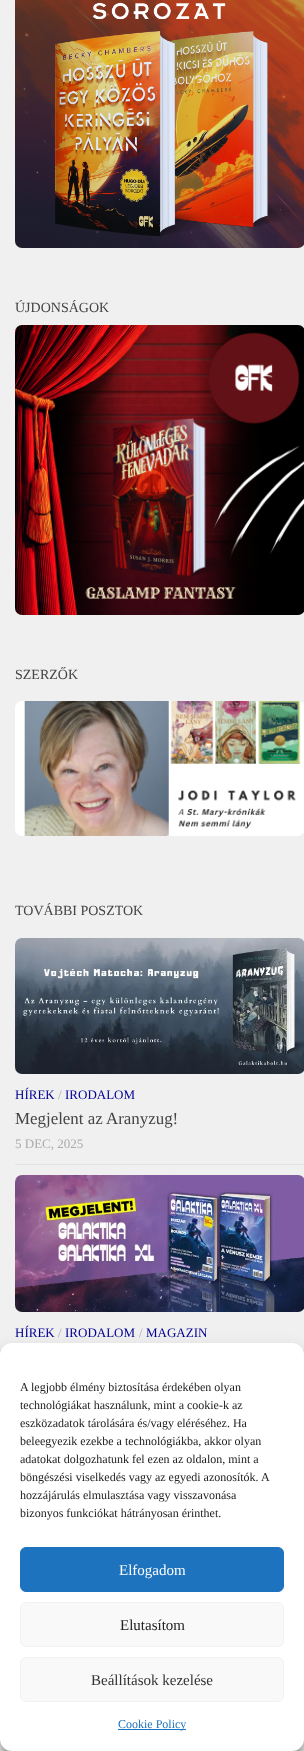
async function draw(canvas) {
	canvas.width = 304;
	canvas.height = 1751;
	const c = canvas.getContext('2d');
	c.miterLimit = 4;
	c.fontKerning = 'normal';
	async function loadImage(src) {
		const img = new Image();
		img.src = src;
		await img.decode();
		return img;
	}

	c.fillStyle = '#f0f0f0';
	c.fillRect(0, 0, 304, 1751);
	c.drawImage(await loadImage('img1.png'), 15, 0, 289, 248);
	c.font = '14px Liberation Serif';
	c.fillStyle = '#444';
	c.fillText('ÚJDONSÁGOK', 15, 312);
	c.drawImage(await loadImage('img2.png'), 15, 325, 289, 290);
	c.fillText('SZERZŐK', 15, 679);
	c.drawImage(await loadImage('img3.png'), 15, 701, 289, 135);
	c.fillText('TOVÁBBI POSZTOK', 15, 915);
	c.fillStyle = '#e4e4e4';
	c.fillRect(15, 1164, 289, 1);
	c.drawImage(await loadImage('img4.png'), 15, 938, 289, 136);
	c.font = '13px Liberation Serif';
	c.fillStyle = '#000094';
	c.fillText('HÍREK', 15, 1099);
	c.fillStyle = '#aaa';
	c.fillText('/', 58, 1099);
	c.fillStyle = '#000094';
	c.fillText('IRODALOM', 65, 1099);
	c.font = '16.9px Liberation Serif';
	c.fillStyle = '#444';
	c.fillText('Megjelent az Aranyzug!', 15, 1124);
	c.font = '13px Liberation Serif';
	c.fillStyle = '#aaa';
	c.fillText('5 DEC, 2025', 15, 1148);
	c.drawImage(await loadImage('img5.png'), 15, 1175, 289, 137);
	c.fillStyle = '#000094';
	c.fillText('HÍREK', 15, 1337);
	c.fillStyle = '#aaa';
	c.fillText('/', 58, 1337);
	c.fillStyle = '#000094';
	c.fillText('IRODALOM', 65, 1337);
	c.fillStyle = '#aaa';
	c.fillText('/', 139, 1337);
	c.fillStyle = '#000094';
	c.fillText('MAGAZIN', 146, 1337);
	c.fillStyle = '#0000003b';
	c.filter = 'blur(3px)';
	c.beginPath();
	c.roundRect(0, 1349, 304, 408, 12);
	c.fill();
	c.filter = 'none';
	c.fillStyle = '#00000030';
	c.filter = 'blur(10px)';
	c.beginPath();
	c.roundRect(0, 1353, 304, 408, 12);
	c.fill();
	c.filter = 'none';
	c.fillStyle = '#fff';
	c.beginPath();
	c.roundRect(0, 1343, 304, 408, 12);
	c.fill();
	c.font = '12px Liberation Serif';
	c.fillStyle = '#222';
	for (const [text, x, y] of [
		['A legjobb élmény biztosítása érdekében olyan', 20, 1391],
		['technológiákat használunk, mint a cookie-k az', 20, 1409],
		['eszközadatok tárolására és/vagy eléréséhez. Ha', 20, 1427],
		['beleegyezik ezekbe a technológiákba, akkor olyan', 20, 1445],
		['adatokat dolgozhatunk fel ezen az oldalon, mint a', 20, 1463],
		['böngészési viselkedés vagy az egyedi azonosítók. A', 20, 1481],
		['hozzájárulás elmulasztása vagy visszavonása', 20, 1499],
		['bizonyos funkciókat hátrányosan érinthet.', 20, 1517],
	]) {
		c.fillText(text, x, y);
	}
	c.fillStyle = '#1e73be';
	c.beginPath();
	c.roundRect(20.5, 1547.5, 263, 44, 5.5);
	c.fill();
	c.strokeStyle = '#1e73be';
	c.stroke();
	c.font = '15px Liberation Serif';
	c.fillStyle = '#fff';
	c.fillText('Elfogadom', 119, 1575);
	c.fillStyle = '#f9f9f9';
	c.beginPath();
	c.roundRect(20.5, 1602.5, 263, 44, 5.5);
	c.fill();
	c.strokeStyle = '#f2f2f2';
	c.stroke();
	c.fillStyle = '#222';
	c.fillText('Elutasítom', 120, 1630);
	c.fillStyle = '#f9f9f9';
	c.beginPath();
	c.roundRect(20.5, 1657.5, 263, 44, 5.5);
	c.fill();
	c.stroke();
	c.fillStyle = '#333';
	c.fillText('Beállítások kezelése', 91, 1685);
	c.fillStyle = '#1e73be';
	c.fillRect(118, 1729, 68, 1);
	c.font = '12px Liberation Serif';
	c.fillText('Cookie Policy', 118, 1728);
}

draw(document.querySelector('canvas'));
